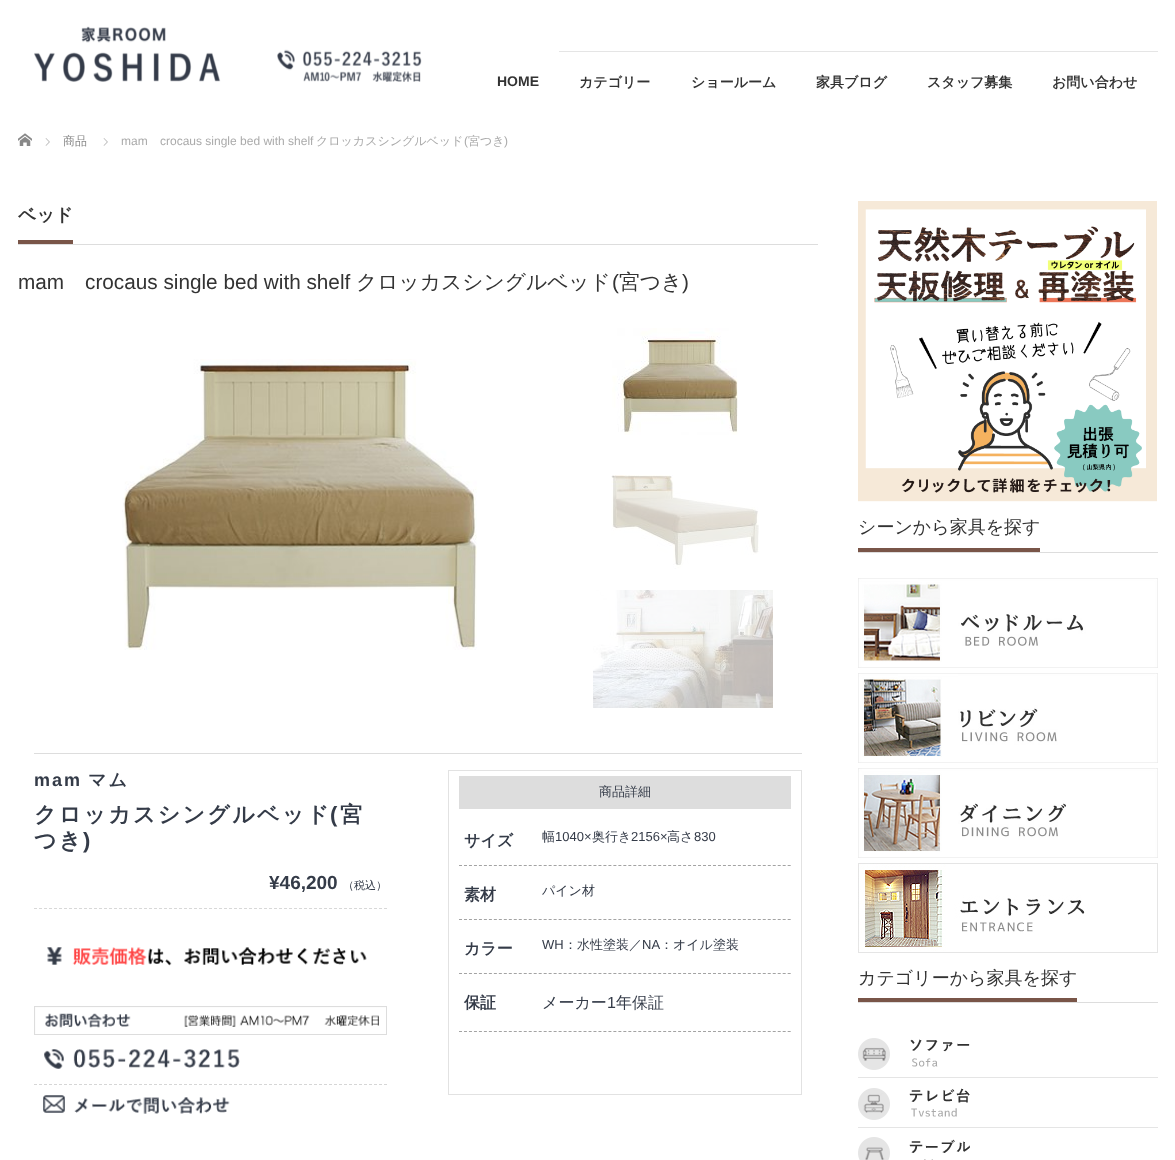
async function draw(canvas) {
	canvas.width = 1175;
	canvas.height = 1160;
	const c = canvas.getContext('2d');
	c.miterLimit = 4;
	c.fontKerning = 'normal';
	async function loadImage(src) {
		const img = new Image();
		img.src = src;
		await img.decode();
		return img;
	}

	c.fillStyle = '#fff';
	c.fillRect(0, 0, 1175, 1160);
	c.drawImage(await loadImage('img1.png'), 34, 26, 388, 56);
	c.font = 'bold 14px Liberation Sans';
	c.fillStyle = '#333';
	c.fillText('HOME', 497, 86);
	c.fillStyle = '#e5e5e5';
	c.fillRect(559, 51, 599, 1);
	c.font = 'bold 14px WenQuanYi Zen Hei';
	c.fillStyle = '#333';
	for (const [text, x, y] of [
		['カテゴリー', 579, 87],
		['ショールーム', 691, 87],
		['家具ブログ', 816, 87],
		['スタッフ募集', 927, 87],
		['お問い合わせ', 1052, 87],
	]) {
		c.fillText(text, x, y);
	}
	c.drawImage(await loadImage('img2.png'), 18, 133, 14, 13);
	c.drawImage(await loadImage('img3.png'), 45, 138, 5, 8);
	c.font = '500 12px WenQuanYi Zen Hei';
	c.fillStyle = '#888';
	c.fillText('商品', 63, 145);
	c.drawImage(await loadImage('img3.png'), 103, 138, 5, 8);
	c.font = '12px Liberation Sans';
	c.fillStyle = '#aaa';
	c.fillText('mam', 121, 145);
	c.fillText('crocaus single bed with shelf', 160, 145);
	c.font = '500 12px WenQuanYi Zen Hei';
	c.fillText('クロッカスシングルベッド', 316, 145);
	c.font = '12px Liberation Sans';
	c.fillText('(', 464, 145);
	c.font = '500 12px WenQuanYi Zen Hei';
	c.fillText('宮つき', 468, 145);
	c.font = '12px Liberation Sans';
	c.fillText(')', 504, 145);
	c.fillStyle = '#ddd';
	c.fillRect(18, 244, 800, 1);
	c.fillStyle = '#795548';
	c.fillRect(18, 240, 55, 4);
	c.font = 'bold 18px WenQuanYi Zen Hei';
	c.fillStyle = '#333';
	c.fillText('ベッド', 18, 221);
	c.font = '20.75px Liberation Sans';
	c.fillText('mam', 18, 289);
	c.fillText('crocaus single bed with shelf', 85, 289);
	c.font = '500 20.75px WenQuanYi Zen Hei';
	c.fillText('クロッカスシングルベッド', 356, 289);
	c.font = '20.75px Liberation Sans';
	c.fillText('(', 612, 289);
	c.font = '500 20.75px WenQuanYi Zen Hei';
	c.fillText('宮つき', 619, 289);
	c.font = '20.75px Liberation Sans';
	c.fillText(')', 682, 289);
	c.drawImage(await loadImage('img4.png'), 122, 359, 355, 291);
	c.drawImage(await loadImage('img5.png'), 612, 328, 126, 107);
	c.drawImage(await loadImage('img6.png'), 611, 475, 148, 94);
	c.drawImage(await loadImage('img7.png'), 593, 590, 180, 118);
	c.fillStyle = '#ddd';
	c.fillRect(34, 753, 768, 1);
	c.letterSpacing = '2px';
	c.font = 'bold 18px Liberation Sans';
	c.fillStyle = '#343b48';
	c.fillText('mam', 34, 786);
	c.font = 'bold 18px WenQuanYi Zen Hei';
	c.fillText('マム', 88, 786);
	c.letterSpacing = '2.25px';
	c.font = 'bold 22px WenQuanYi Zen Hei';
	c.fillText('クロッカスシングルベッド', 34, 822);
	c.font = 'bold 22px Liberation Sans';
	c.fillText('(', 330, 822);
	c.font = 'bold 22px WenQuanYi Zen Hei';
	c.fillText('宮', 340, 822);
	c.fillText('つき', 34, 848);
	c.font = 'bold 22px Liberation Sans';
	c.fillText(')', 83, 848);
	c.beginPath();
	c.moveTo(34, 908.5);
	c.lineTo(387, 908.5);
	c.strokeStyle = '#d8d8d8';
	c.setLineDash([3, 2]);
	c.stroke();
	c.letterSpacing = '0px';
	c.font = 'bold 19px Liberation Sans';
	c.fillText('¥46,200', 269, 889);
	c.font = '500 11px WenQuanYi Zen Hei';
	c.fillText('（税込）', 343, 889);
	c.drawImage(await loadImage('img8.png'), 47, 947, 320, 19);
	c.drawImage(await loadImage('img9.png'), 34, 1006, 353, 29);
	c.drawImage(await loadImage('img10.png'), 44, 1049, 196, 20);
	c.beginPath();
	c.moveTo(34, 1084.5);
	c.lineTo(387, 1084.5);
	c.strokeStyle = '#d6d6d6';
	c.stroke();
	c.drawImage(await loadImage('img11.png'), 43, 1095, 187, 19);
	c.strokeStyle = '#e2e2e2';
	c.setLineDash([]);
	c.strokeRect(448.5, 770.5, 353, 324);
	c.fillStyle = '#ddd';
	c.fillRect(459, 776, 332, 33);
	c.font = '500 13px WenQuanYi Zen Hei';
	c.fillStyle = '#343b48';
	c.fillText('商品詳細', 599, 796);
	c.font = 'bold 16px WenQuanYi Zen Hei';
	c.fillText('サイズ', 464, 846);
	c.font = '500 13px WenQuanYi Zen Hei';
	c.fillText('幅', 542, 841);
	c.font = '13px Liberation Sans';
	c.fillText('1040×', 555, 841);
	c.font = '500 13px WenQuanYi Zen Hei';
	c.fillText('奥行き', 592, 841);
	c.font = '13px Liberation Sans';
	c.fillText('2156×', 631, 841);
	c.font = '500 13px WenQuanYi Zen Hei';
	c.fillText('高さ', 667, 841);
	c.font = '13px Liberation Sans';
	c.fillText('830', 694, 841);
	c.beginPath();
	c.moveTo(459, 865.5);
	c.lineTo(791, 865.5);
	c.strokeStyle = '#a3a3a3';
	c.setLineDash([3, 1.98]);
	c.stroke();
	c.font = 'bold 16px WenQuanYi Zen Hei';
	c.fillText('素材', 464, 900);
	c.font = '500 13px WenQuanYi Zen Hei';
	c.fillText('パイン材', 542, 895);
	c.beginPath();
	c.moveTo(459, 919.5);
	c.lineTo(791, 919.5);
	c.stroke();
	c.font = 'bold 16px WenQuanYi Zen Hei';
	c.fillText('カラー', 464, 954);
	c.font = '13px Liberation Sans';
	c.fillText('WH', 542, 949);
	c.font = '500 13px WenQuanYi Zen Hei';
	c.fillText('：水性塗装／', 564, 949);
	c.font = '13px Liberation Sans';
	c.fillText('NA', 642, 949);
	c.font = '500 13px WenQuanYi Zen Hei';
	c.fillText('：オイル塗装', 660, 949);
	c.beginPath();
	c.moveTo(459, 973.5);
	c.lineTo(791, 973.5);
	c.stroke();
	c.font = 'bold 16px WenQuanYi Zen Hei';
	c.fillText('保証', 464, 1008);
	c.font = '500 16px WenQuanYi Zen Hei';
	c.fillText('メーカー', 542, 1008);
	c.font = '16px Liberation Sans';
	c.fillText('1', 607, 1008);
	c.font = '500 16px WenQuanYi Zen Hei';
	c.fillText('年保証', 616, 1008);
	c.beginPath();
	c.moveTo(459, 1031.5);
	c.lineTo(791, 1031.5);
	c.stroke();
	c.drawImage(await loadImage('img12.png'), 858, 201, 299, 301);
	c.fillStyle = '#ddd';
	c.fillRect(858, 552, 300, 1);
	c.fillStyle = '#795548';
	c.fillRect(858, 548, 182, 4);
	c.font = '500 18px WenQuanYi Zen Hei';
	c.fillStyle = '#333';
	c.fillText('シーンから家具を探す', 858, 533);
	c.drawImage(await loadImage('img13.png'), 858, 578, 300, 90);
	c.drawImage(await loadImage('img14.png'), 858, 673, 300, 90);
	c.drawImage(await loadImage('img15.png'), 858, 768, 300, 90);
	c.drawImage(await loadImage('img16.png'), 858, 863, 300, 90);
	c.fillStyle = '#ddd';
	c.fillRect(858, 1002, 300, 1);
	c.fillStyle = '#795548';
	c.fillRect(858, 998, 219, 4);
	c.fillStyle = '#333';
	c.fillText('カテゴリーから家具を探す', 858, 984);
	c.drawImage(await loadImage('img17.png'), 858, 1038, 112, 32);
	c.fillStyle = '#e5e5e5';
	c.fillRect(858, 1077, 300, 1);
	c.drawImage(await loadImage('img18.png'), 858, 1088, 112, 32);
	c.fillRect(858, 1127, 300, 1);
	c.drawImage(await loadImage('img19.png'), 858, 1137, 112, 23);
}

draw(document.querySelector('canvas'));
